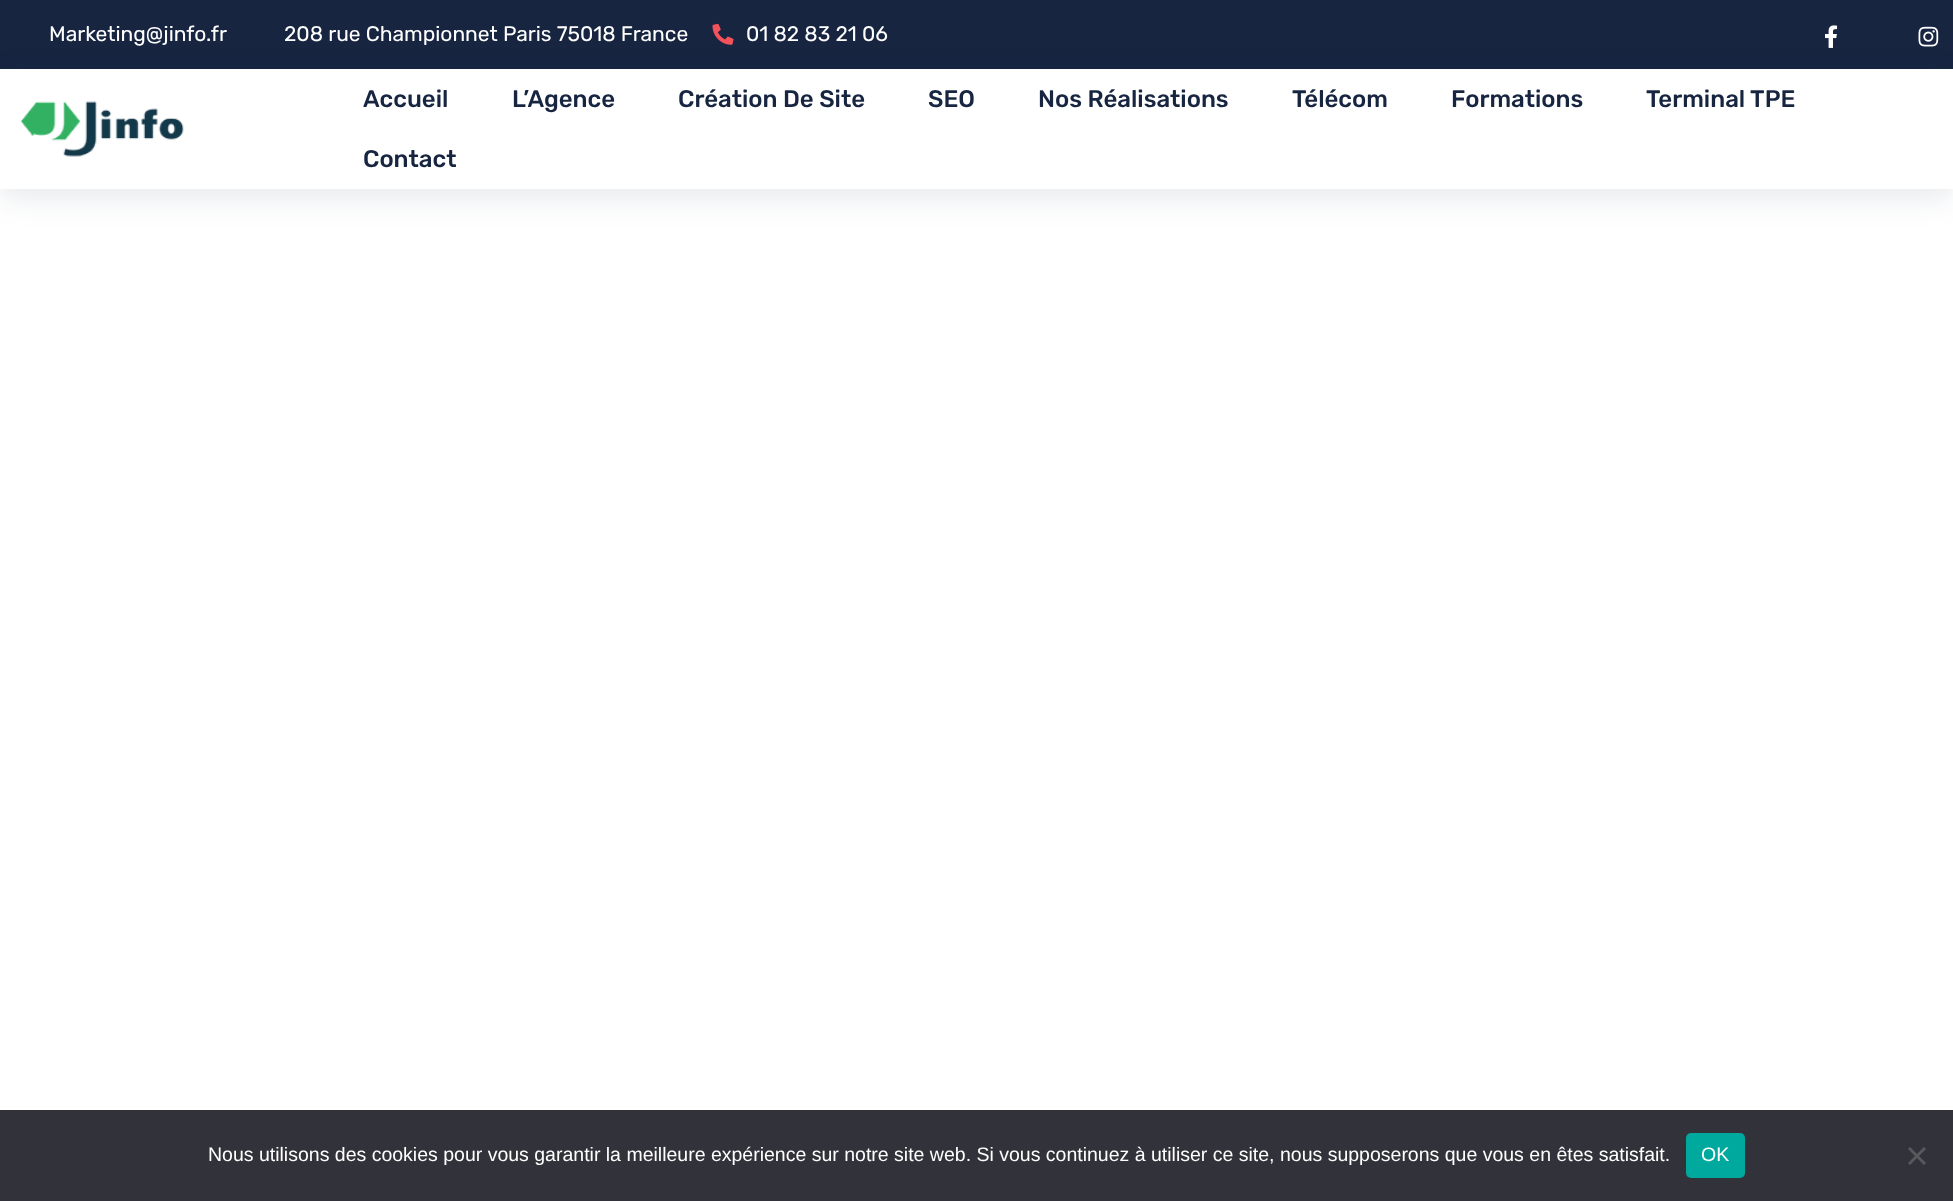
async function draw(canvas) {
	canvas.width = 1953;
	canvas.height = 1201;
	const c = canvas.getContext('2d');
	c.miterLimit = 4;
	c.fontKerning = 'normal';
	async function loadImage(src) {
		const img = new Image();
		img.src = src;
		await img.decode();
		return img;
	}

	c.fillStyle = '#fff';
	c.fillRect(0, 0, 1953, 1201);
	c.fillStyle = '#172541';
	c.fillRect(0, 0, 1953, 69);
	c.font = '21px Rubik';
	c.fillStyle = '#fff';
	c.fillText('Marketing@jinfo.fr', 49, 41);
	c.fillText('208 rue Championnet Paris 75018 France', 284, 41);
	c.drawImage(await loadImage('img1.png'), 712, 23, 22, 22);
	c.fillText('01 82 83 21 06', 746, 41);
	c.drawImage(await loadImage('img2.png'), 1825, 25, 13, 23);
	c.drawImage(await loadImage('img3.png'), 1918, 26, 21, 21);
	c.save();
	c.beginPath();
	c.moveTo(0, 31);
	c.lineTo(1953, 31);
	c.lineTo(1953, 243);
	c.lineTo(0, 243);
	c.closePath();
	c.moveTo(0, 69);
	c.lineTo(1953, 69);
	c.lineTo(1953, 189);
	c.lineTo(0, 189);
	c.closePath();
	c.clip('evenodd');
	c.fillStyle = '#07193c1a';
	c.filter = 'blur(15px)';
	c.beginPath();
	c.rect(0, 77, 1953, 120);
	c.fill();
	c.filter = 'none';
	c.restore();
	c.drawImage(await loadImage('img4.png'), 20, 101, 164, 56);
	c.font = '500 24px Rubik';
	c.fillStyle = '#172541';
	for (const [text, x, y] of [
		['Accueil', 363, 107],
		['L’Agence', 512, 107],
		['Création De Site', 678, 107],
		['SEO', 928, 107],
		['Nos Réalisations', 1038, 107],
		['Télécom', 1292, 107],
		['Formations', 1451, 107],
		['Terminal TPE', 1646, 107],
		['Contact', 363, 167],
	]) {
		c.fillText(text, x, y);
	}
	c.fillStyle = '#32323a';
	c.fillRect(0, 1110, 1953, 91);
	c.font = '19.5px Liberation Sans';
	c.fillStyle = '#fff';
	c.fillText('Nous utilisons des cookies pour vous garantir la meilleure expérience sur notre site web. Si vous continuez à utiliser ce site, nous supposerons que vous en êtes satisfait.', 208, 1161);
	c.fillStyle = '#00a99d';
	c.beginPath();
	c.roundRect(1686, 1133, 59, 45, 5);
	c.fill();
	c.fillStyle = '#fff';
	c.fillText('OK', 1701, 1161);
	c.fillStyle = '#59595d';
	c.beginPath();
	c.moveTo(1924, 1147);
	c.lineTo(1926, 1149);
	c.lineTo(1910, 1165);
	c.lineTo(1908, 1163);
	c.closePath();
	c.fill();
	c.beginPath();
	c.moveTo(1908, 1149);
	c.lineTo(1910, 1147);
	c.lineTo(1926, 1163);
	c.lineTo(1924, 1165);
	c.closePath();
	c.fill();
}

draw(document.querySelector('canvas'));
